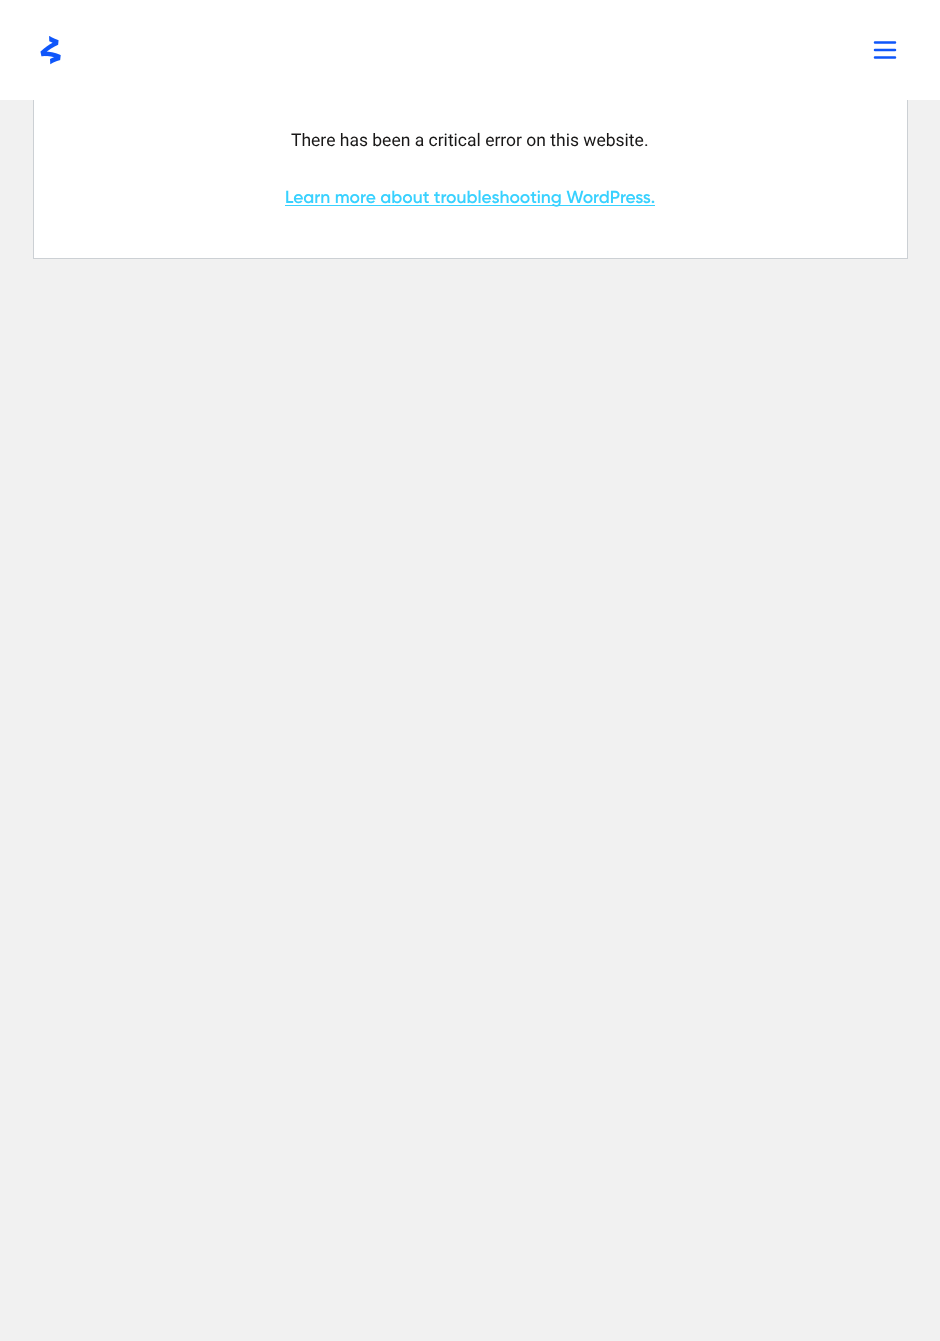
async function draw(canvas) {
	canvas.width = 940;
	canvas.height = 1341;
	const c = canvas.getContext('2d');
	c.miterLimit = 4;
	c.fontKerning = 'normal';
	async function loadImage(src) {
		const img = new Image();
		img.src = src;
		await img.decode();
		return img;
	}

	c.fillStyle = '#f1f1f1';
	c.fillRect(0, 0, 940, 1341);
	c.fillStyle = '#fff';
	c.fillRect(34, 100, 873, 158);
	c.strokeStyle = '#ccd0d4';
	c.strokeRect(33.5, 63.5, 874, 195);
	c.fillRect(0, 0, 940, 100);
	c.drawImage(await loadImage('img1.png'), 40, 36, 21, 29);
	c.beginPath();
	c.moveTo(875, 50);
	c.lineTo(895, 50);
	c.moveTo(875, 57.5);
	c.lineTo(895, 57.5);
	c.moveTo(875, 42.5);
	c.lineTo(895, 42.5);
	c.strokeStyle = '#0f56fa';
	c.lineWidth = 2.5;
	c.lineCap = 'round';
	c.lineJoin = 'round';
	c.stroke();
	c.font = '17.5px Roboto';
	c.fillStyle = '#191818';
	c.fillText('There has been a critical error on this website.', 291, 146);
	c.fillStyle = '#38d1ff';
	c.fillRect(285, 205, 370, 1);
	c.font = '17.5px Gilroy';
	c.fillText('Learn more about troubleshooting WordPress.', 285, 203);
}

draw(document.querySelector('canvas'));
